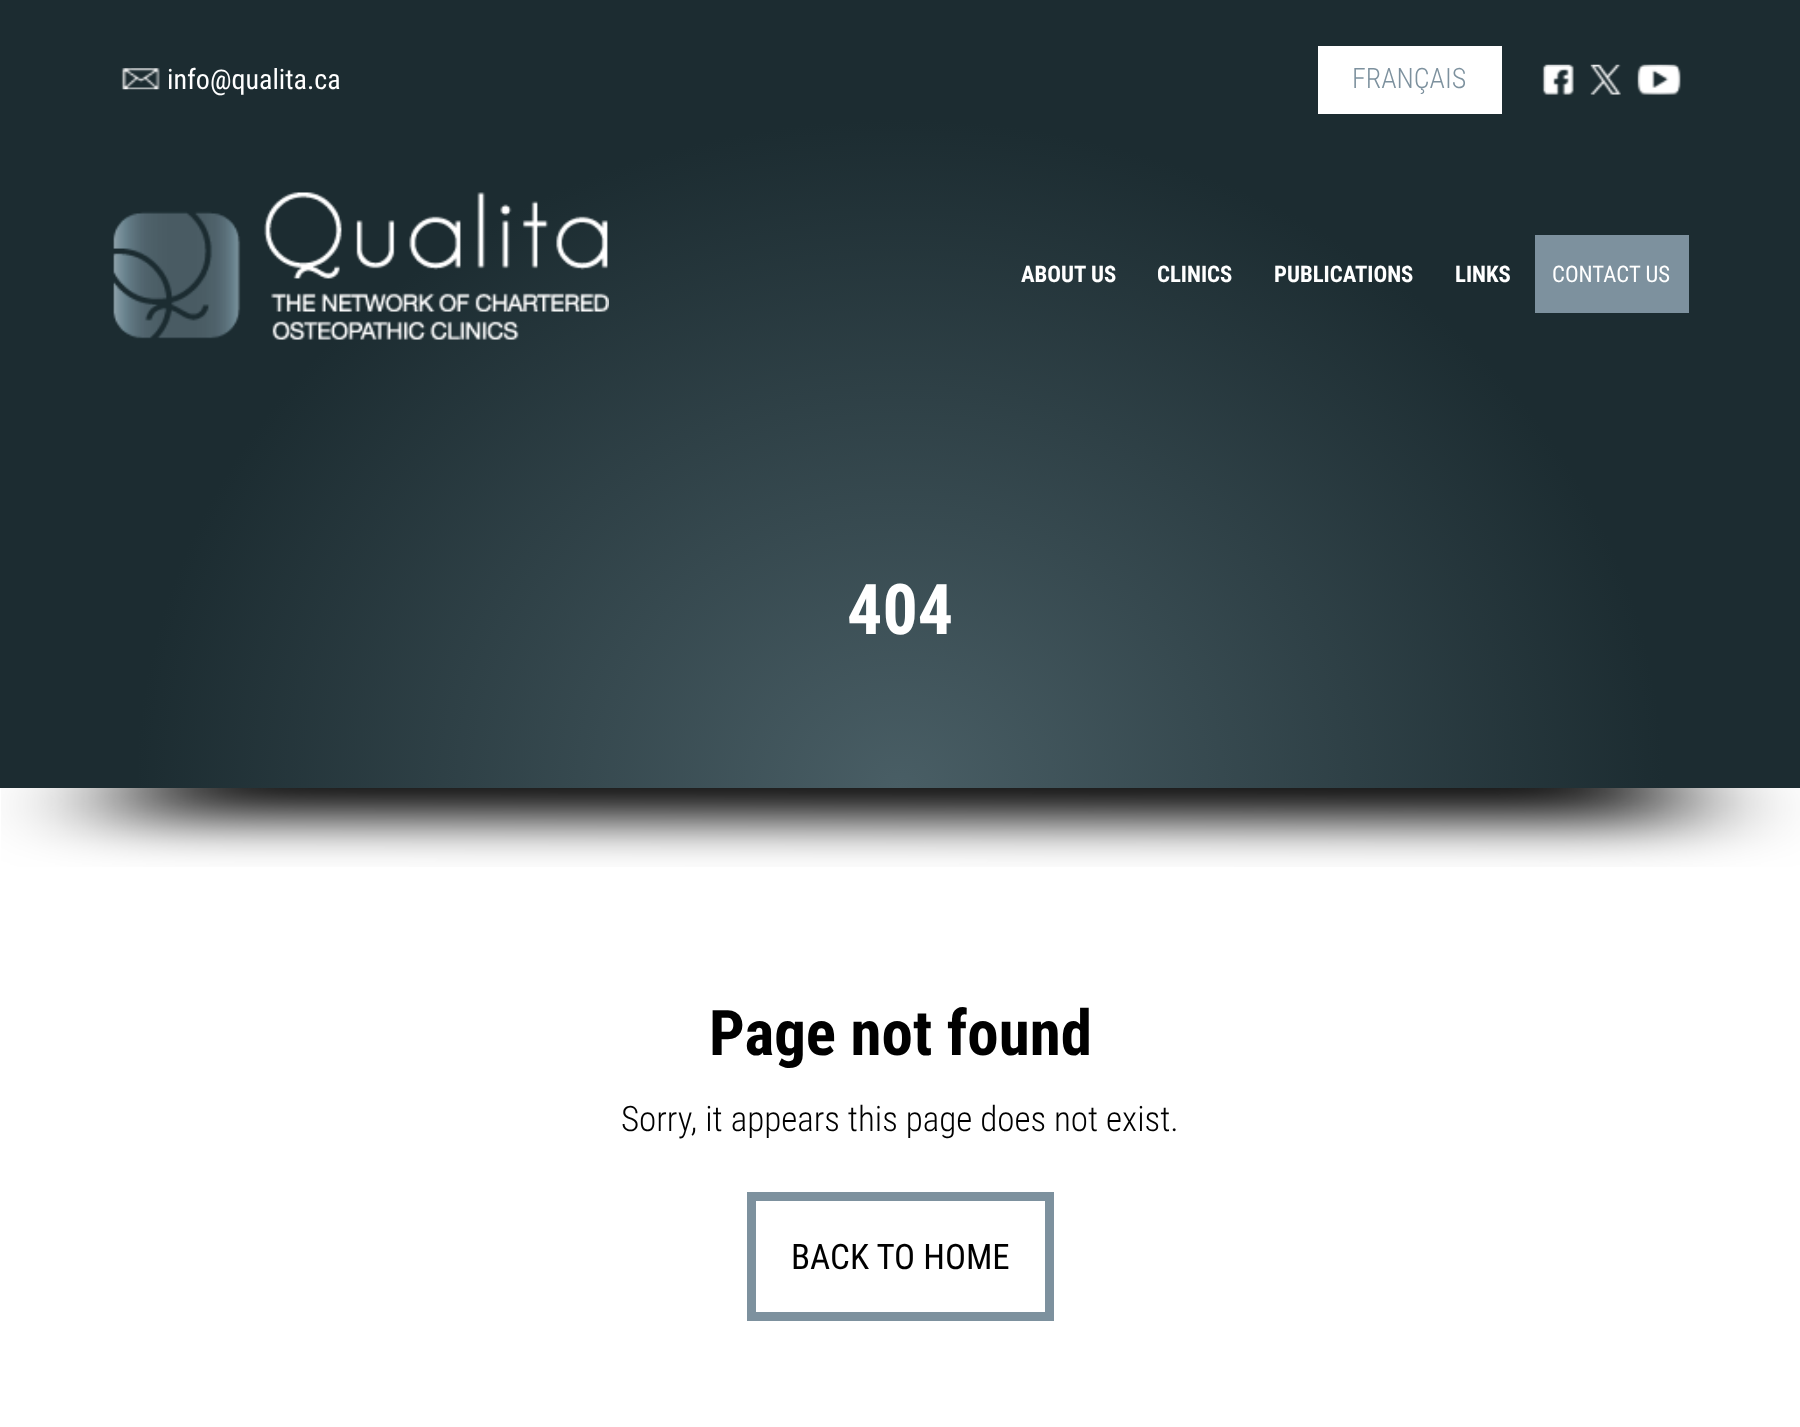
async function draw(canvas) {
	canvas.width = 1800;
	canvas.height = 1427;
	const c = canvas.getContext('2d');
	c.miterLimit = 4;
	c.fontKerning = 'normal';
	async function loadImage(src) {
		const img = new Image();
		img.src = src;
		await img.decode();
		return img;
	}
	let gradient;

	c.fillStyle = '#fff';
	c.fillRect(0, 0, 1800, 1427);
	gradient = c.createRadialGradient(900, 900.47, 0, 900, 900.47, 1273);
	gradient.addColorStop(0, '#495e65');
	gradient.addColorStop(0.6, '#1c2c31');
	c.fillStyle = gradient;
	c.beginPath();
	c.rect(0, 0, 1800, 788);
	c.save();
	c.clip();
	c.scale(1, 1114 / 1273);
	c.fillRect(0, 0, 1800, 1631);
	c.restore();
	c.drawImage(await loadImage('img1.png'), 121, 68, 39, 22);
	c.font = '28px Roboto Condensed';
	c.fillStyle = '#fff';
	c.fillText('info@qualita.ca', 167, 89);
	c.fillRect(1318, 46, 184, 68);
	c.font = '300 28px Roboto Condensed';
	c.fillStyle = '#7d919e';
	c.fillText('FRANÇAIS', 1352, 88);
	c.drawImage(await loadImage('img2.png'), 1542, 64, 32, 31);
	c.drawImage(await loadImage('img3.png'), 1590, 64, 31, 31);
	c.drawImage(await loadImage('img4.png'), 1637, 64, 44, 31);
	c.drawImage(await loadImage('img5.png'), 113, 192, 496, 148);
	c.font = 'bold 22.75px Roboto Condensed';
	c.fillStyle = '#fff';
	for (const [text, x, y] of [
		['ABOUT US', 1021, 282],
		['CLINICS', 1157, 282],
		['PUBLICATIONS', 1274, 282],
		['LINKS', 1455, 282],
	]) {
		c.fillText(text, x, y);
	}
	c.fillStyle = '#7d919e';
	c.fillRect(1535, 235, 154, 78);
	c.font = '22.75px Roboto Condensed';
	c.fillStyle = '#fff';
	c.fillText('CONTACT US', 1552, 282);
	c.font = 'bold 70px Roboto Condensed';
	c.fillText('404', 847, 634);
	c.drawImage(await loadImage('img6.png'), 1, 788, 1799, 79);
	c.font = 'bold 63px Roboto Condensed';
	c.fillStyle = '#000';
	c.fillText('Page not found', 709, 1055);
	c.font = '300 35px Roboto Condensed';
	c.fillText('Sorry, it appears this page does not exist.', 621, 1131);
	c.strokeStyle = '#7d919e';
	c.lineWidth = 9;
	c.strokeRect(751.5, 1196.5, 298, 120);
	c.font = '35px Roboto Condensed';
	c.fillText('BACK TO HOME', 791, 1269);
}

draw(document.querySelector('canvas'));
